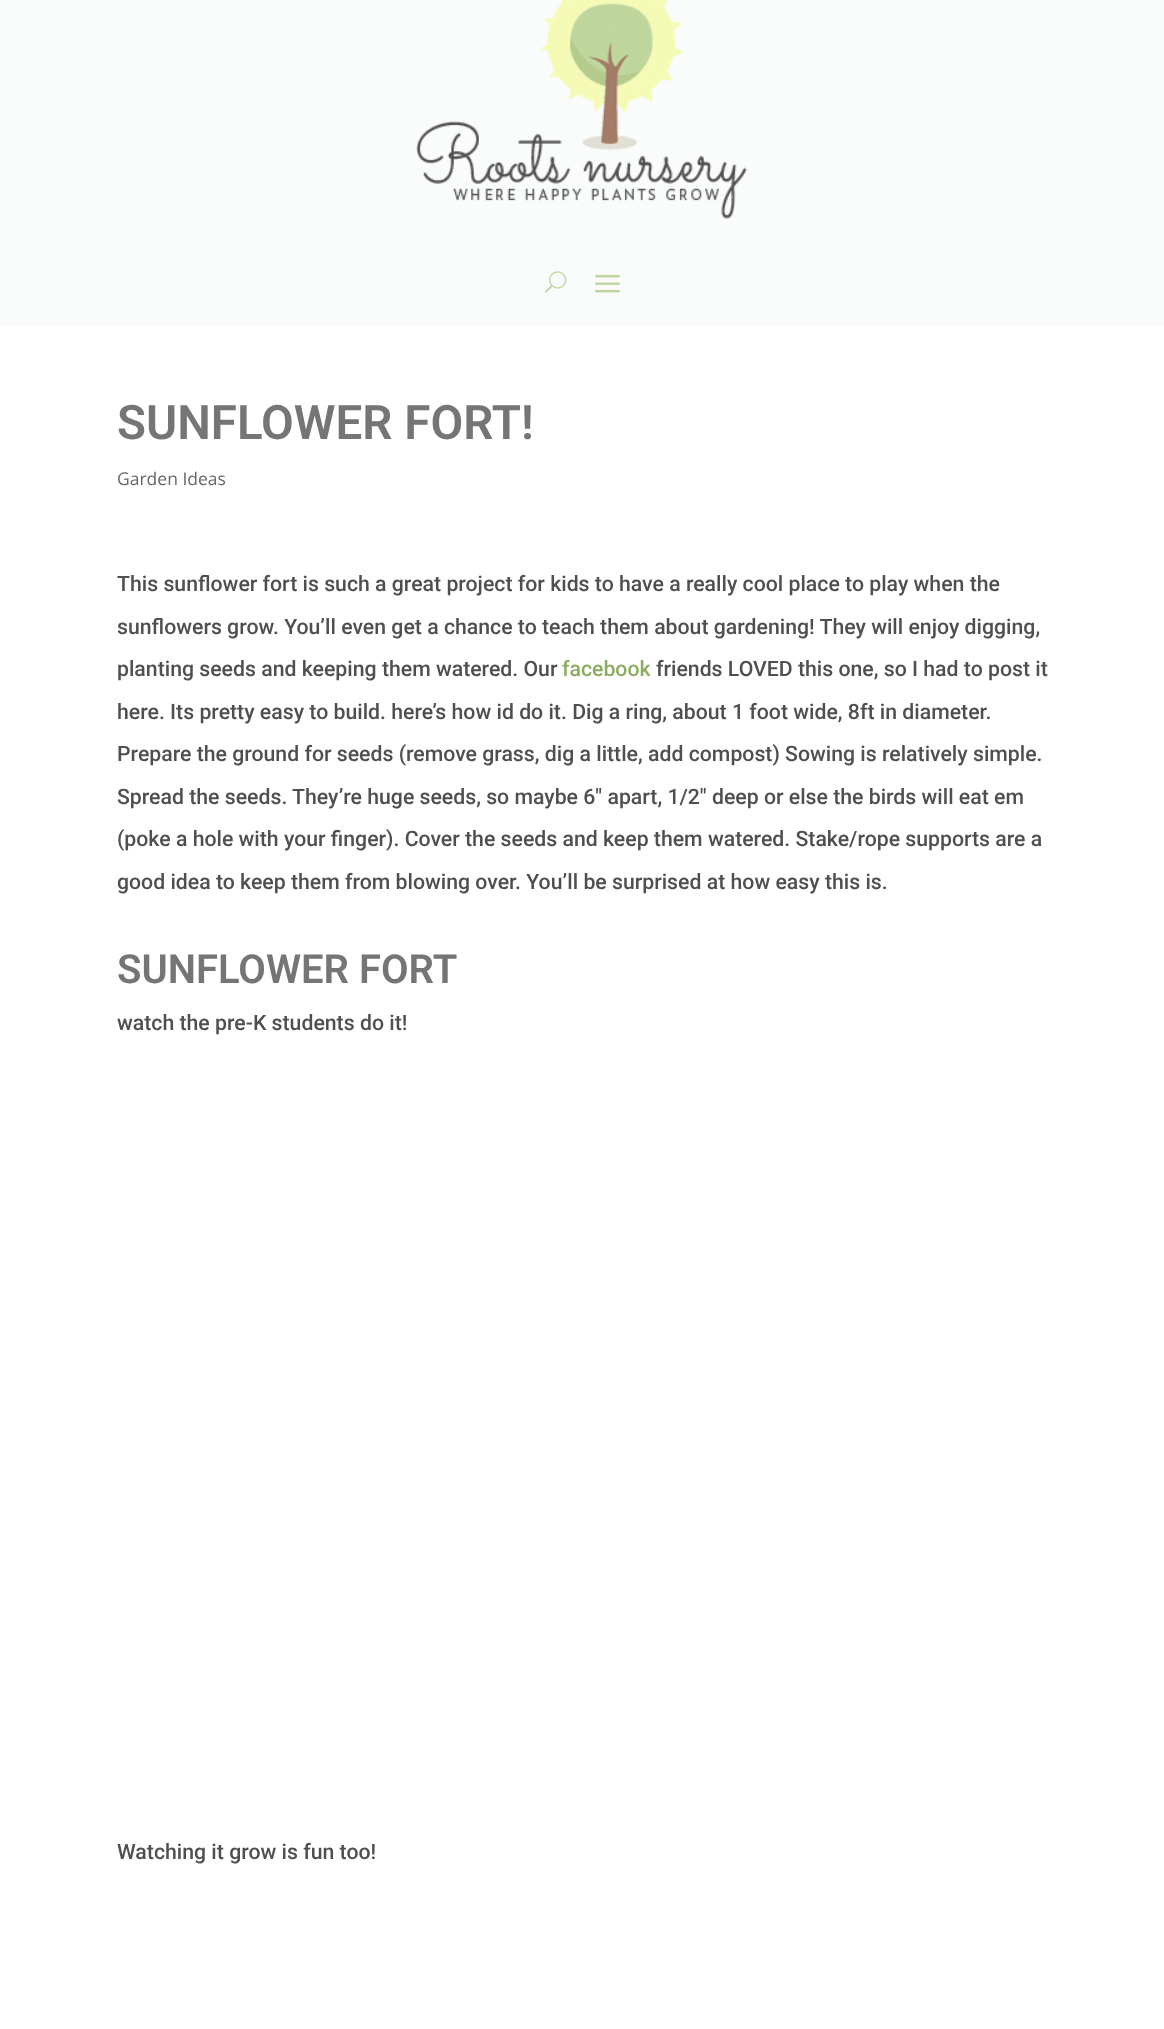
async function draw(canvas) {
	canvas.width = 1164;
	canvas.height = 2029;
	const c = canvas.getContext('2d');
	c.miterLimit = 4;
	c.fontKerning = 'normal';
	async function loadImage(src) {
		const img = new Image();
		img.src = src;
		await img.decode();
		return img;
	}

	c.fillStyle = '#fff';
	c.fillRect(0, 0, 1164, 2029);
	c.fillStyle = '#fafcfc';
	c.fillRect(0, 0, 1164, 326);
	c.drawImage(await loadImage('img1.png'), 416, 0, 331, 219);
	c.drawImage(await loadImage('img2.png'), 545, 271, 22, 22);
	c.drawImage(await loadImage('img3.png'), 595, 274, 25, 19);
	c.font = '600 47.5px Roboto';
	c.fillStyle = '#757575';
	c.fillText('SUNFLOWER FORT!', 117, 439);
	c.font = '17.5px Open Sans';
	c.fillStyle = '#666';
	c.fillText('Garden Ideas', 117, 485);
	c.font = '500 21.25px Roboto';
	c.fillStyle = '#4f4f4f';
	for (const [text, x, y] of [
		['This sunflower fort is such a great project for kids to have a really cool place to play when the', 117, 591],
		['sunflowers grow. You’ll even get a chance to teach them about gardening! They will enjoy digging,', 117, 634],
		['planting seeds and keeping them watered. Our', 117, 676],
	]) {
		c.fillText(text, x, y);
	}
	c.fillStyle = '#8aad5f';
	c.fillText('facebook', 562, 676);
	c.fillStyle = '#4f4f4f';
	for (const [text, x, y] of [
		['friends LOVED this one, so I had to post it', 656, 676],
		['here. Its pretty easy to build. here’s how id do it. Dig a ring, about 1 foot wide, 8ft in diameter.', 117, 719],
		['Prepare the ground for seeds (remove grass, dig a little, add compost) Sowing is relatively simple.', 117, 761],
		['Spread the seeds. They’re huge seeds, so maybe 6″ apart, 1/2″ deep or else the birds will eat em', 117, 804],
		['(poke a hole with your finger). Cover the seeds and keep them watered. Stake/rope supports are a', 117, 846],
		['good idea to keep them from blowing over. You’ll be surprised at how easy this is.', 117, 889],
	]) {
		c.fillText(text, x, y);
	}
	c.font = '600 40px Roboto';
	c.fillStyle = '#757575';
	c.fillText('SUNFLOWER FORT', 117, 983);
	c.font = '500 21.25px Roboto';
	c.fillStyle = '#4f4f4f';
	c.fillText('watch the pre-K students do it!', 117, 1030);
	c.fillText('Watching it grow is fun too!', 117, 1859);
}

draw(document.querySelector('canvas'));
